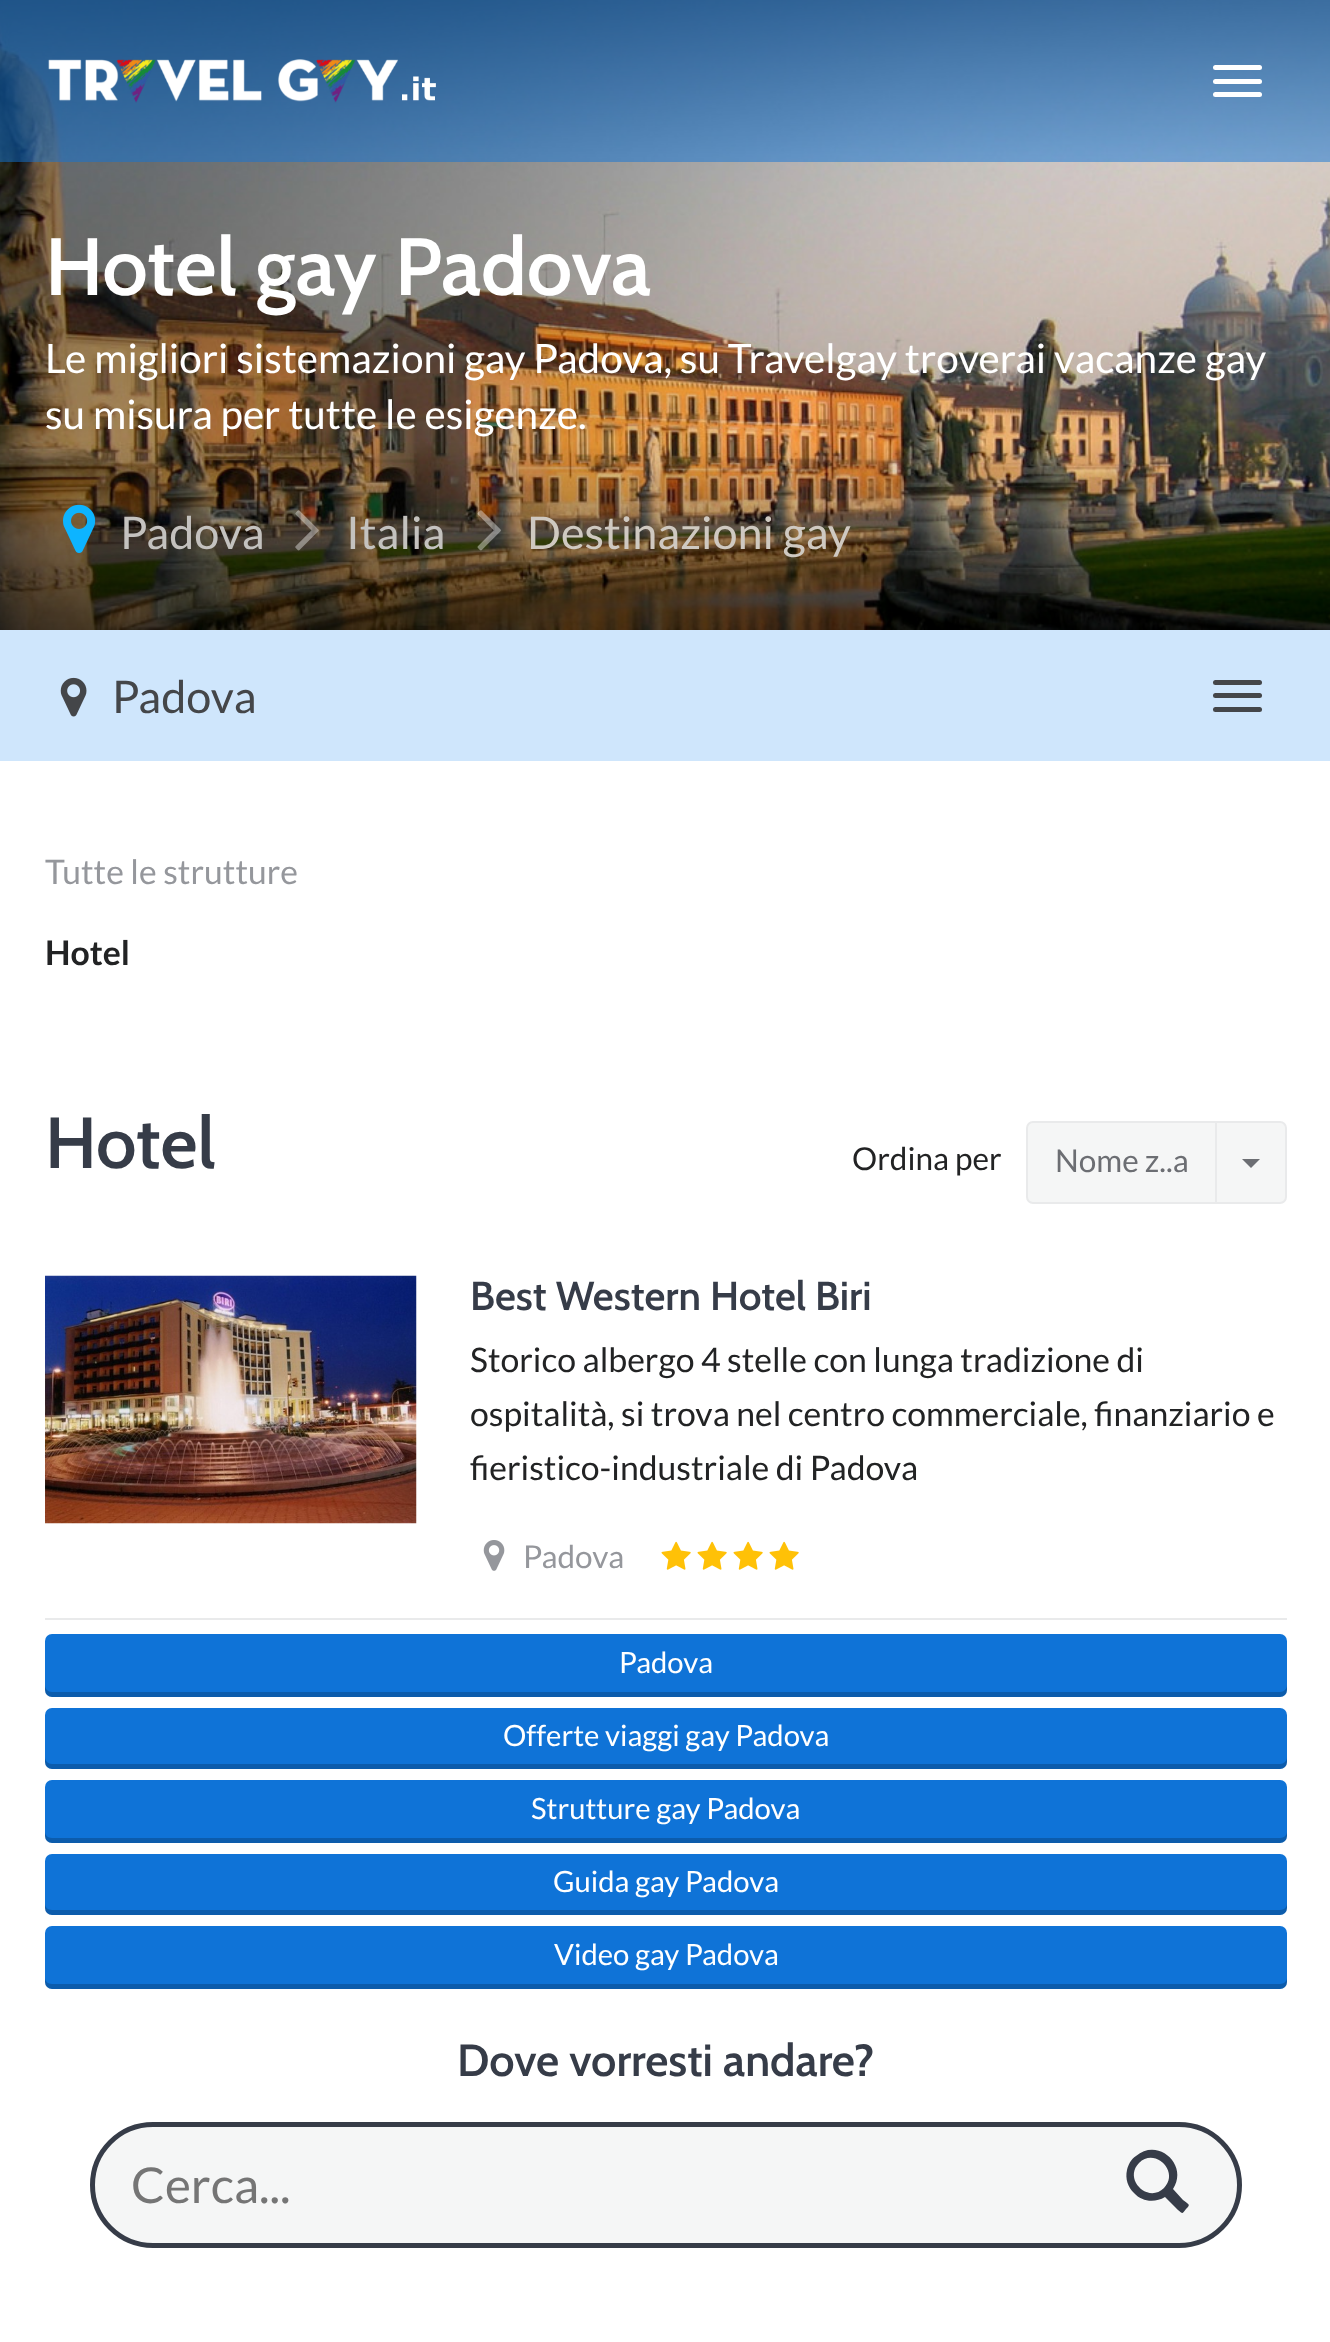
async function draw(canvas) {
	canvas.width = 1330;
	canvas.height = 2342;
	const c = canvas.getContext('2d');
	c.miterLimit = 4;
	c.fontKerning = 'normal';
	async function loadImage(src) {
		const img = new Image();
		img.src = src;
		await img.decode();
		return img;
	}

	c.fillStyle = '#fff';
	c.fillRect(0, 0, 1330, 2342);
	c.drawImage(await loadImage('img2.png'), 0, 0, 1330, 630);
	c.fillStyle = '#0f73d780';
	c.fillRect(0, 0, 1330, 162);
	c.drawImage(await loadImage('img1.png'), 48, 59, 388, 44);
	c.fillStyle = '#fff';
	c.beginPath();
	c.roundRect(1213, 65, 49, 5, 2.5);
	c.fill();
	c.beginPath();
	c.roundRect(1213, 79, 49, 5, 2.5);
	c.fill();
	c.beginPath();
	c.roundRect(1213, 92, 49, 5, 2.5);
	c.fill();
	c.font = '600 81px Cabin';
	c.fillText('Hotel gay Padova', 45, 295);
	c.font = '40.5px Lato';
	c.fillText('Le migliori sistemazioni gay Padova, su Travelgay troverai vacanze gay', 45, 373);
	c.fillText('su misura per tutte le esigenze.', 45, 429);
	c.drawImage(await loadImage('img3.png'), 63, 504, 33, 49);
	c.font = '45px Lato';
	c.fillStyle = '#c4c2bf';
	c.fillText('Padova', 120, 549);
	c.drawImage(await loadImage('img4.png'), 295, 510, 24, 41);
	c.fillText('Italia', 346, 549);
	c.drawImage(await loadImage('img5.png'), 477, 510, 24, 41);
	c.fillStyle = '#cfc9c1';
	c.fillText('Destinazioni gay', 527, 549);
	c.fillStyle = '#cfe6fc';
	c.fillRect(0, 630, 1330, 131);
	c.drawImage(await loadImage('img6.png'), 60, 677, 27, 40);
	c.fillStyle = '#444649';
	c.fillText('Padova', 112, 713);
	c.beginPath();
	c.roundRect(1213, 680, 49, 5, 2.5);
	c.fill();
	c.beginPath();
	c.roundRect(1213, 693, 49, 5, 2.5);
	c.fill();
	c.beginPath();
	c.roundRect(1213, 707, 49, 5, 2.5);
	c.fill();
	c.font = '33.75px Lato';
	c.fillStyle = '#95979c';
	c.fillText('Tutte le strutture', 45, 884);
	c.font = 'bold 33.75px Lato';
	c.fillStyle = '#222324';
	c.fillText('Hotel', 45, 965);
	c.font = '600 72px Cabin';
	c.fillStyle = '#363c48';
	c.fillText('Hotel', 45, 1168);
	c.font = '31.5px Lato';
	c.fillStyle = '#222324';
	c.fillText('Ordina per', 852, 1170);
	c.fillStyle = '#f5f6f6';
	c.beginPath();
	c.roundRect(1027, 1122, 189, 81, [6, 0, 0, 6]);
	c.fill();
	c.strokeStyle = '#e9eaeb';
	c.lineWidth = 2;
	c.stroke();
	c.fillStyle = '#6c6e73';
	c.fillText('Nome z..a', 1055, 1172);
	c.fillStyle = '#f5f6f6';
	c.beginPath();
	c.roundRect(1216, 1122, 70, 81, [0, 6, 6, 0]);
	c.fill();
	c.stroke();
	c.fillStyle = '#6c6e73';
	c.beginPath();
	c.moveTo(1242, 1159);
	c.lineTo(1260, 1159);
	c.lineTo(1251, 1168);
	c.closePath();
	c.fill();
	c.fillStyle = '#e9eaeb';
	c.fillRect(45, 1618, 1242, 2);
	c.drawImage(await loadImage('img7.png'), 45, 1275, 372, 249);
	c.font = '600 40.5px Cabin';
	c.fillStyle = '#363c48';
	c.fillText('Best Western Hotel Biri', 470, 1310);
	c.font = '33.75px Lato';
	c.fillStyle = '#222324';
	for (const [text, x, y] of [
		['Storico albergo 4 stelle con lunga tradizione di', 470, 1372],
		['ospitalità, si trova nel centro commerciale, finanziario e', 470, 1426],
		['fieristico-industriale di Padova', 470, 1480],
	]) {
		c.fillText(text, x, y);
	}
	c.drawImage(await loadImage('img8.png'), 483, 1540, 22, 31);
	c.font = '31.5px Lato';
	c.fillStyle = '#95979c';
	c.fillText('Padova', 523, 1568);
	c.drawImage(await loadImage('img9.png'), 661, 1541, 30, 29);
	c.drawImage(await loadImage('img9.png'), 697, 1541, 30, 29);
	c.drawImage(await loadImage('img9.png'), 733, 1541, 30, 29);
	c.drawImage(await loadImage('img9.png'), 769, 1541, 30, 29);
	c.fillStyle = '#0f73d7';
	c.beginPath();
	c.roundRect(45, 1634, 1242, 63, 7);
	c.fill();
	c.fillStyle = '#00000033';
	c.beginPath();
	c.moveTo(45, 1685);
	c.lineTo(45, 1690);
	c.bezierCurveTo(45, 1694, 48, 1697, 52, 1697);
	c.lineTo(1280, 1697);
	c.bezierCurveTo(1284, 1697, 1287, 1694, 1287, 1690);
	c.lineTo(1287, 1685);
	c.bezierCurveTo(1287, 1689, 1284, 1692, 1280, 1692);
	c.lineTo(52, 1692);
	c.bezierCurveTo(48, 1692, 45, 1689, 45, 1685);
	c.closePath();
	c.fill();
	c.font = '29.25px Lato';
	c.fillStyle = '#fff';
	c.fillText('Padova', 619, 1673);
	c.fillStyle = '#0f73d7';
	c.beginPath();
	c.roundRect(45, 1708, 1242, 61, 7);
	c.fill();
	c.fillStyle = '#00000033';
	c.beginPath();
	c.moveTo(45, 1757);
	c.lineTo(45, 1762);
	c.bezierCurveTo(45, 1766, 48, 1769, 52, 1769);
	c.lineTo(1280, 1769);
	c.bezierCurveTo(1284, 1769, 1287, 1766, 1287, 1762);
	c.lineTo(1287, 1757);
	c.bezierCurveTo(1287, 1761, 1284, 1764, 1280, 1764);
	c.lineTo(52, 1764);
	c.bezierCurveTo(48, 1764, 45, 1761, 45, 1757);
	c.closePath();
	c.fill();
	c.fillStyle = '#fff';
	c.fillText('Offerte viaggi gay Padova', 503, 1746);
	c.fillStyle = '#0f73d7';
	c.beginPath();
	c.roundRect(45, 1780, 1242, 63, 7);
	c.fill();
	c.fillStyle = '#00000033';
	c.beginPath();
	c.moveTo(45, 1832);
	c.lineTo(45, 1836);
	c.bezierCurveTo(45, 1840, 48, 1843, 52, 1843);
	c.lineTo(1280, 1843);
	c.bezierCurveTo(1284, 1843, 1287, 1840, 1287, 1836);
	c.lineTo(1287, 1832);
	c.bezierCurveTo(1287, 1835, 1284, 1838, 1280, 1838);
	c.lineTo(52, 1838);
	c.bezierCurveTo(48, 1838, 45, 1835, 45, 1832);
	c.closePath();
	c.fill();
	c.fillStyle = '#fff';
	c.fillText('Strutture gay Padova', 531, 1819);
	c.fillStyle = '#0f73d7';
	c.beginPath();
	c.roundRect(45, 1854, 1242, 61, 7);
	c.fill();
	c.fillStyle = '#00000033';
	c.beginPath();
	c.moveTo(45, 1904);
	c.lineTo(45, 1908);
	c.bezierCurveTo(45, 1912, 48, 1915, 52, 1915);
	c.lineTo(1280, 1915);
	c.bezierCurveTo(1284, 1915, 1287, 1912, 1287, 1908);
	c.lineTo(1287, 1904);
	c.bezierCurveTo(1287, 1907, 1284, 1910, 1280, 1910);
	c.lineTo(52, 1910);
	c.bezierCurveTo(48, 1910, 45, 1907, 45, 1904);
	c.closePath();
	c.fill();
	c.fillStyle = '#fff';
	c.fillText('Guida gay Padova', 553, 1892);
	c.fillStyle = '#0f73d7';
	c.beginPath();
	c.roundRect(45, 1926, 1242, 63, 7);
	c.fill();
	c.fillStyle = '#00000033';
	c.beginPath();
	c.moveTo(45, 1978);
	c.lineTo(45, 1982);
	c.bezierCurveTo(45, 1986, 48, 1989, 52, 1989);
	c.lineTo(1280, 1989);
	c.bezierCurveTo(1284, 1989, 1287, 1986, 1287, 1982);
	c.lineTo(1287, 1978);
	c.bezierCurveTo(1287, 1981, 1284, 1984, 1280, 1984);
	c.lineTo(52, 1984);
	c.bezierCurveTo(48, 1984, 45, 1981, 45, 1978);
	c.closePath();
	c.fill();
	c.fillStyle = '#fff';
	c.fillText('Video gay Padova', 554, 1965);
	c.font = '600 45px Cabin';
	c.fillStyle = '#363c48';
	c.fillText('Dove vorresti andare?', 457, 2076);
	c.fillStyle = '#f5f6f6';
	c.beginPath();
	c.roundRect(92.5, 2124.5, 1147, 121, 60.5);
	c.fill();
	c.strokeStyle = '#363c48';
	c.lineWidth = 5;
	c.stroke();
	c.font = '49.5px Lato';
	c.fillStyle = '#757575';
	c.fillText('Cerca...', 131, 2203);
	c.fillStyle = '#363c48';
	c.beginPath();
	c.moveTo(1134, 2193);
	c.bezierCurveTo(1128, 2187, 1125, 2179, 1127, 2170);
	c.bezierCurveTo(1128, 2165, 1131, 2159, 1136, 2156);
	c.bezierCurveTo(1158, 2137, 1189, 2165, 1173, 2189);
	c.lineTo(1183, 2200);
	c.bezierCurveTo(1189, 2205, 1191, 2204, 1186, 2209);
	c.bezierCurveTo(1182, 2214, 1183, 2214, 1178, 2210);
	c.lineTo(1165, 2197);
	c.bezierCurveTo(1155, 2203, 1142, 2202, 1134, 2193);
	c.closePath();
	c.moveTo(1139, 2163);
	c.bezierCurveTo(1123, 2179, 1148, 2204, 1164, 2188);
	c.bezierCurveTo(1180, 2172, 1155, 2147, 1139, 2163);
	c.closePath();
	c.fill();
}

draw(document.querySelector('canvas'));
